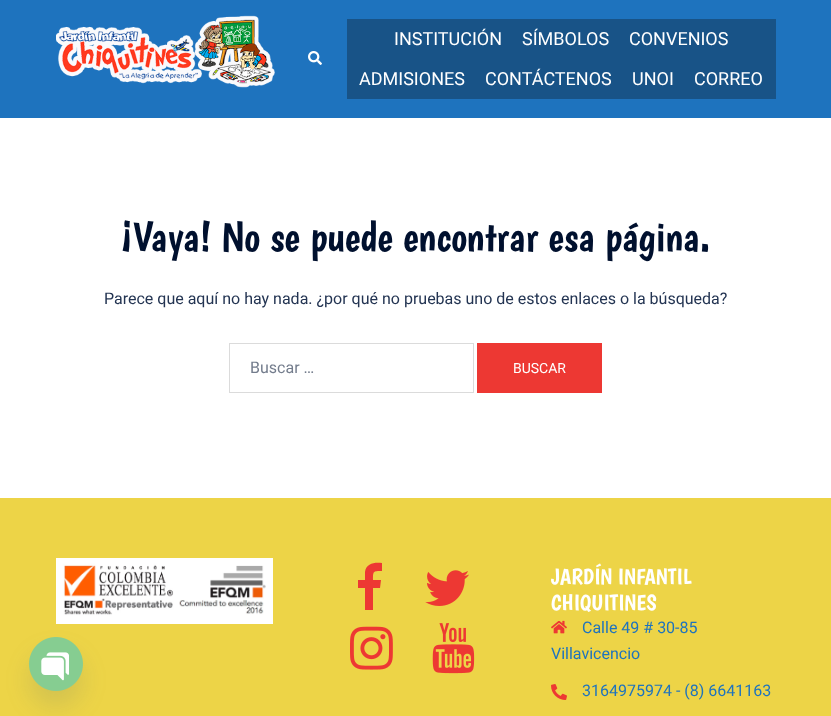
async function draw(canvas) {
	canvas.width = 831;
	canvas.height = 716;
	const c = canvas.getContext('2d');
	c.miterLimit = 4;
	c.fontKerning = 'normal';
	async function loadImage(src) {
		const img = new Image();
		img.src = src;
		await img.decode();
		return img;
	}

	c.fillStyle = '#fff';
	c.fillRect(0, 0, 831, 716);
	c.fillStyle = '#edd447';
	c.fillRect(0, 498, 831, 218);
	c.drawImage(await loadImage('img4.png'), 56, 558, 217, 66);
	c.fillStyle = '#49687e29';
	c.filter = 'blur(12px)';
	c.beginPath();
	c.roundRect(29, 653, 54, 54, 27);
	c.fill();
	c.filter = 'none';
	c.drawImage(await loadImage('img1.png'), 29, 637, 54, 54);
	c.fillStyle = '#1e73be';
	c.fillRect(0, 0, 831, 118);
	c.drawImage(await loadImage('img2.png'), 56, 15, 219, 73);
	c.drawImage(await loadImage('img3.png'), 308, 51, 14, 14);
	c.fillStyle = '#185387';
	c.fillRect(347, 19, 429, 80);
	c.font = '18px Roboto';
	c.fillStyle = '#fff';
	for (const [text, x, y] of [
		['INSTITUCIÓN', 394, 45],
		['SÍMBOLOS', 522, 45],
		['CONVENIOS', 629, 45],
		['ADMISIONES', 359, 85],
		['CONTÁCTENOS', 485, 85],
		['UNOI', 632, 85],
		['CORREO', 694, 85],
	]) {
		c.fillText(text, x, y);
	}
	c.font = '42px Boogaloo';
	c.fillStyle = '#00102e';
	c.fillText('¡Vaya! No se puede encontrar esa página.', 121, 251);
	c.font = '16px Roboto';
	c.fillStyle = '#233452';
	c.fillText('Parece que aquí no hay nada. ¿por qué no pruebas uno de estos enlaces o la búsqueda?', 104, 304);
	c.strokeStyle = '#dbdbdb';
	c.strokeRect(229.5, 343.5, 244, 49);
	c.fillStyle = '#737c8c';
	c.fillText('Buscar …', 250, 373);
	c.fillStyle = '#ed3833';
	c.fillRect(477, 343, 125, 50);
	c.font = '14px Roboto';
	c.fillStyle = '#fff';
	c.fillText('BUSCAR', 513, 373);
	c.fillStyle = '#ed3833';
	c.beginPath();
	c.moveTo(382, 563);
	c.bezierCurveTo(375, 562, 366, 563, 365, 572);
	c.lineTo(365, 580);
	c.lineTo(358, 580);
	c.lineTo(358, 588);
	c.lineTo(365, 588);
	c.lineTo(365, 610);
	c.lineTo(373, 610);
	c.lineTo(373, 588);
	c.lineTo(380, 588);
	c.lineTo(381, 580);
	c.lineTo(373, 580);
	c.bezierCurveTo(373, 571, 373, 571, 382, 571);
	c.closePath();
	c.fill();
	c.drawImage(await loadImage('img5.png'), 425, 570, 44, 36);
	c.drawImage(await loadImage('img6.png'), 350, 626, 43, 44);
	c.drawImage(await loadImage('img7.png'), 432, 623, 43, 51);
	c.font = '22px Boogaloo';
	c.fillStyle = '#fff';
	c.fillText('JARDÍN INFANTIL', 551, 584);
	c.fillText('CHIQUITINES', 551, 610);
	c.drawImage(await loadImage('img8.png'), 551, 620, 16, 14);
	c.font = '16px Roboto';
	c.fillStyle = '#1e73be';
	c.fillText('Calle 49 # 30-85', 582, 633);
	c.fillText('Villavicencio', 551, 659);
	c.drawImage(await loadImage('img9.png'), 551, 684, 16, 16);
	c.fillText('3164975974 - (8) 6641163', 582, 696);
}

draw(document.querySelector('canvas'));
